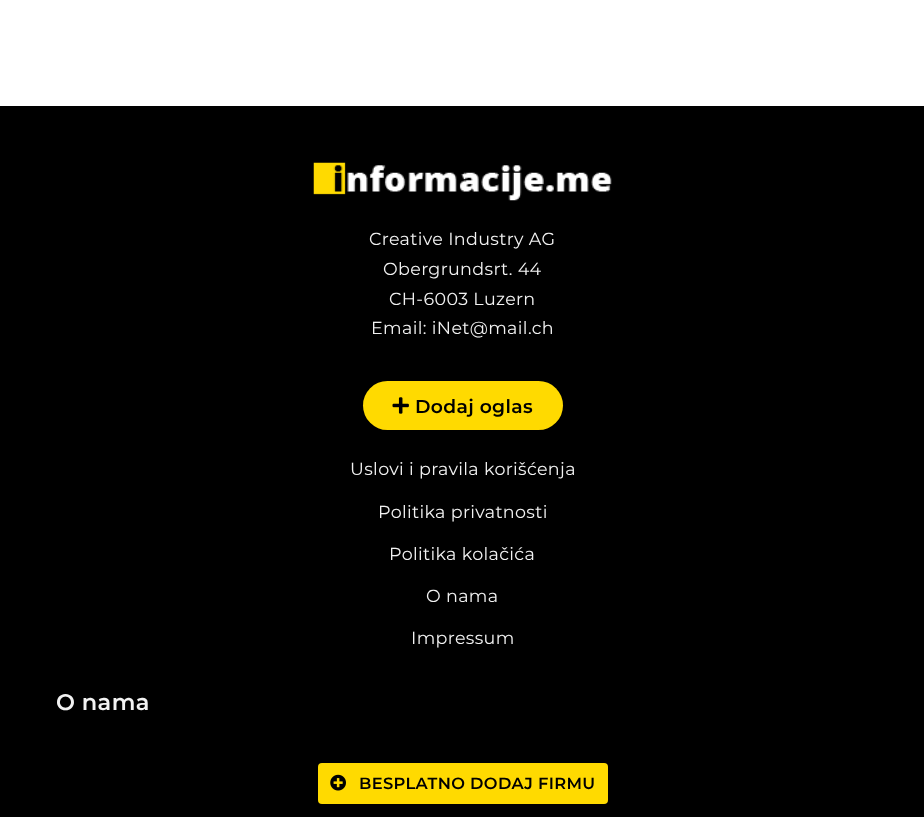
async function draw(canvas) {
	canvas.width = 924;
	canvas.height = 817;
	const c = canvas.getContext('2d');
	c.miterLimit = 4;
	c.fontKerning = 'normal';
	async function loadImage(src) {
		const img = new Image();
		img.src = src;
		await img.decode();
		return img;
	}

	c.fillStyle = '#fff';
	c.fillRect(0, 0, 924, 817);
	c.fillStyle = '#000';
	c.fillRect(0, 106, 924, 643);
	c.drawImage(await loadImage('img1.png'), 313, 162, 299, 39);
	c.letterSpacing = '0.35px';
	c.font = '17.5px Montserrat';
	c.fillStyle = '#f2f2f2';
	for (const [text, x, y] of [
		['Creative Industry AG', 369, 245],
		['Obergrundsrt. 44', 383, 275],
		['CH-6003 Luzern', 389, 305],
		['Email: iNet@mail.ch', 371, 334],
	]) {
		c.fillText(text, x, y);
	}
	c.fillStyle = '#ffda00';
	c.beginPath();
	c.roundRect(363, 381, 200, 49, 24.5);
	c.fill();
	c.drawImage(await loadImage('img2.png'), 392, 397, 17, 17);
	c.font = '600 18.75px Montserrat';
	c.fillStyle = '#000';
	c.fillText('Dodaj oglas', 415, 413);
	c.font = '17.5px Montserrat';
	c.fillStyle = '#f2f2f2';
	for (const [text, x, y] of [
		['Uslovi i pravila korišćenja', 350, 475],
		['Politika privatnosti', 378, 518],
		['Politika kolačića', 389, 560],
		['O nama', 426, 602],
		['Impressum', 411, 644],
	]) {
		c.fillText(text, x, y);
	}
	c.font = '600 22.5px Montserrat';
	c.fillText('O nama', 56, 710);
	c.fillStyle = '#00000033';
	c.filter = 'blur(14.5px)';
	c.beginPath();
	c.rect(-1, 755, 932, 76);
	c.fill();
	c.filter = 'none';
	c.fillStyle = '#000';
	c.fillRect(0, 749, 924, 68);
	c.fillStyle = '#ffda00';
	c.beginPath();
	c.roundRect(318, 763, 290, 41, 4);
	c.fill();
	c.drawImage(await loadImage('img3.png'), 330, 774, 16, 17);
	c.font = '600 16.25px Montserrat';
	c.fillStyle = '#000';
	c.fillText('BESPLATNO DODAJ FIRMU', 359, 789);
}

draw(document.querySelector('canvas'));
